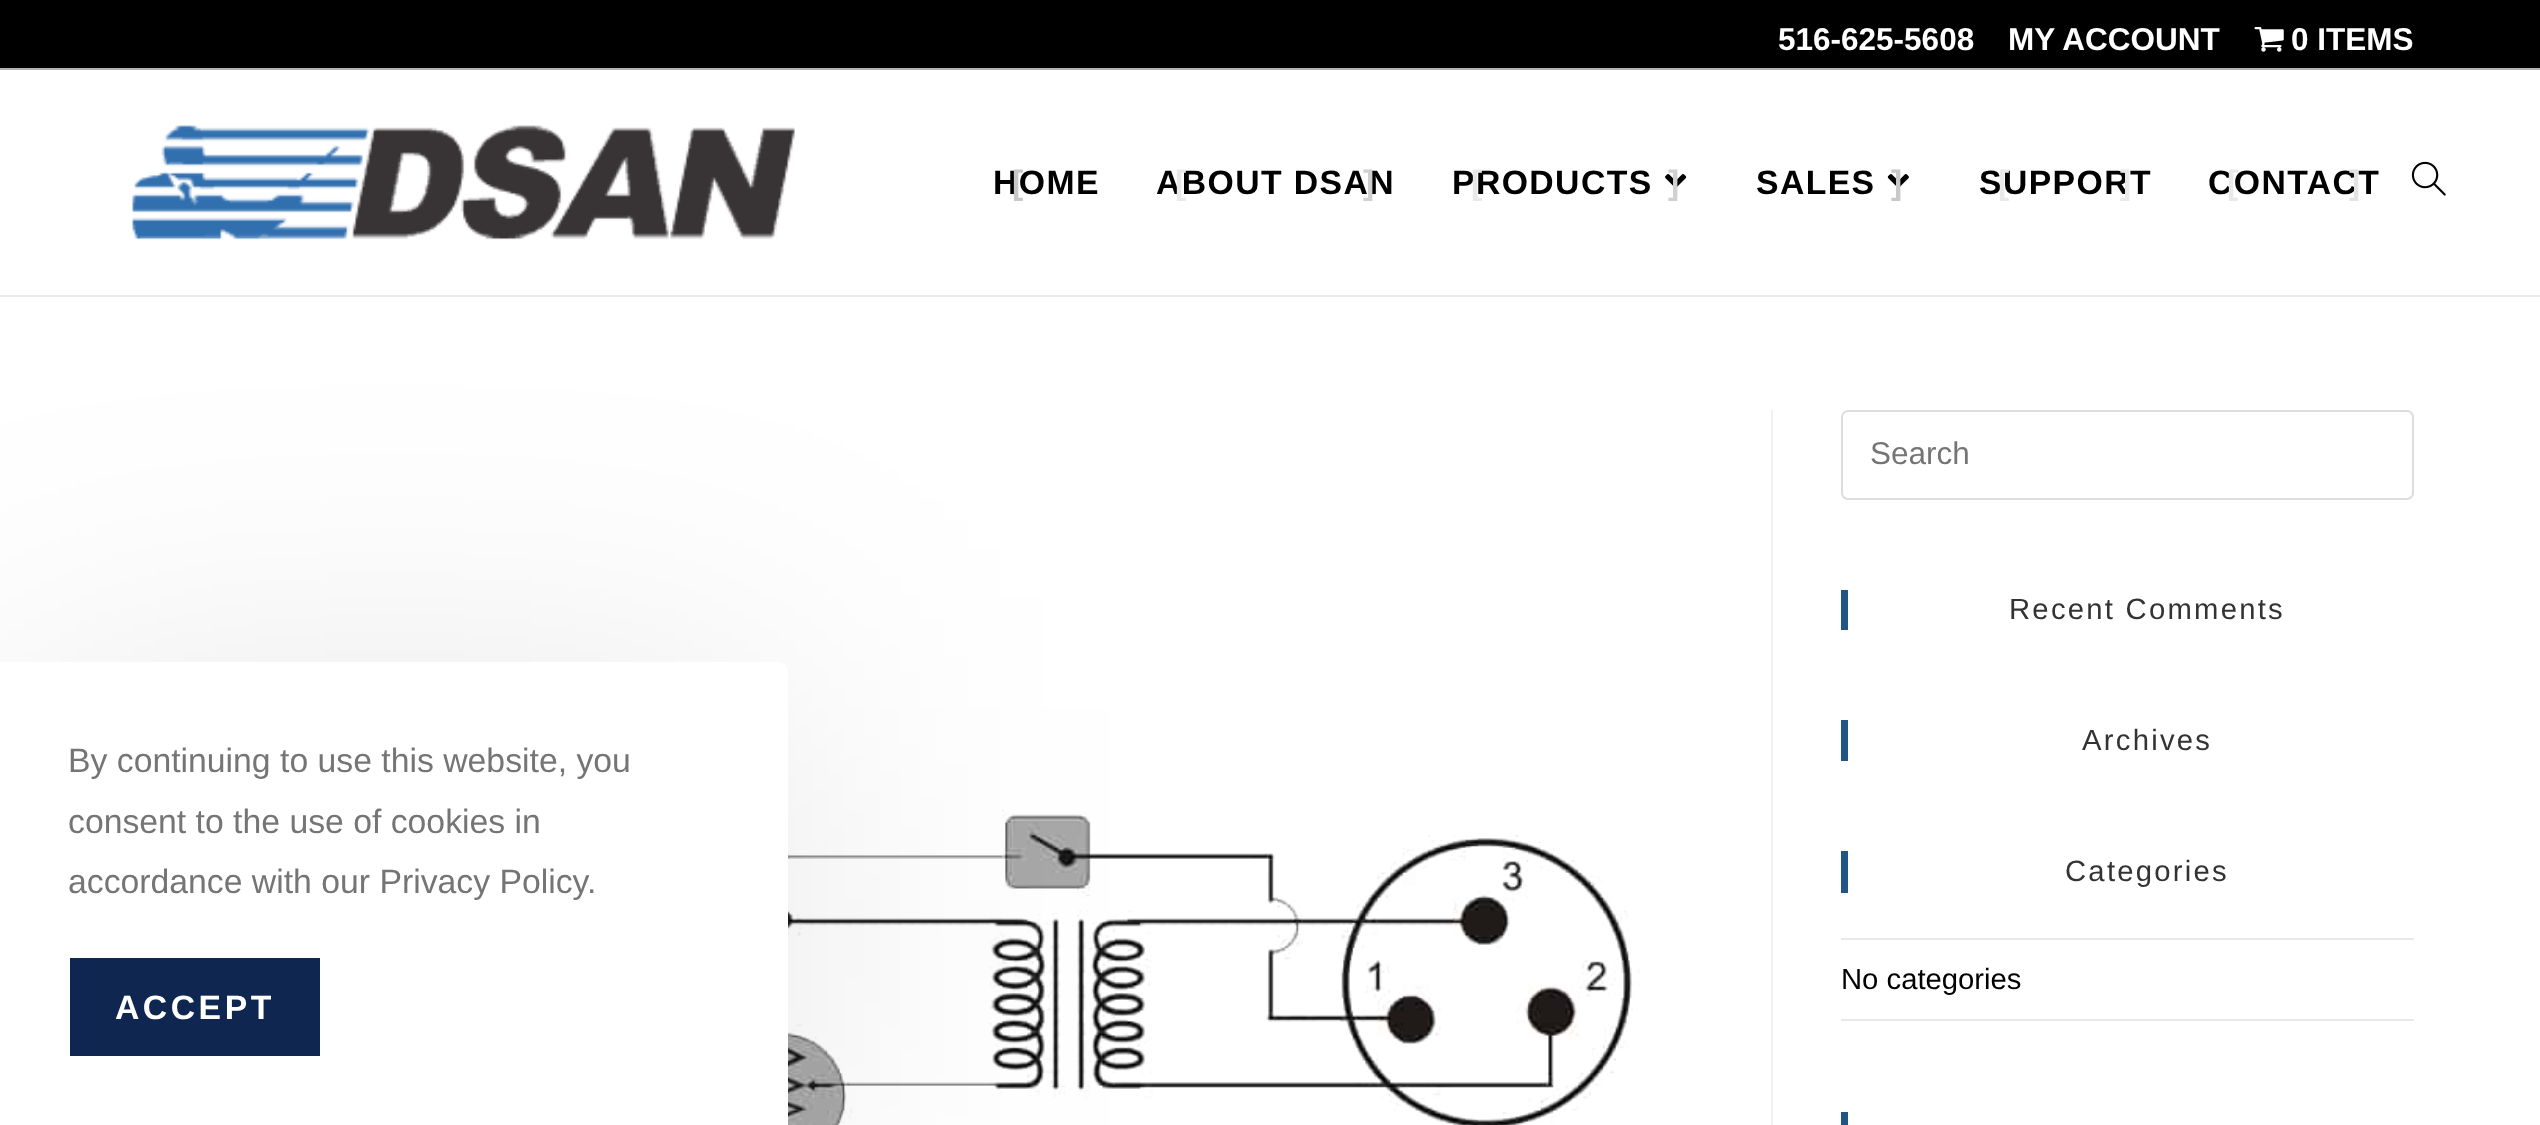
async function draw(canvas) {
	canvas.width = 2540;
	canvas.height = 1125;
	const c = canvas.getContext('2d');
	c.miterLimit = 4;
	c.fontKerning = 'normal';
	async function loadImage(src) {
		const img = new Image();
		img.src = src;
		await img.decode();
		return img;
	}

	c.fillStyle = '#fff';
	c.fillRect(0, 0, 2540, 1125);
	c.fillStyle = '#ebebeb';
	c.fillRect(0, 295, 2540, 2);
	c.drawImage(await loadImage('img2.png'), 132, 125, 663, 115);
	c.drawImage(await loadImage('img6.png'), 788, 810, 852, 315);
	c.fillStyle = '#0000001a';
	c.filter = 'blur(169px)';
	c.beginPath();
	c.roundRect(0, 707, 788, 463, 9);
	c.fill();
	c.filter = 'none';
	c.fillStyle = '#fff';
	c.beginPath();
	c.roundRect(0, 662, 788, 463, [0, 9, 0, 0]);
	c.fill();
	c.font = '33.75px Liberation Sans';
	c.fillStyle = '#757575';
	for (const [text, x, y] of [
		['By continuing to use this website, you', 68, 772],
		['consent to the use of cookies in', 68, 833],
		['accordance with our Privacy Policy.', 68, 893],
	]) {
		c.fillText(text, x, y);
	}
	c.fillStyle = '#0e2650';
	c.fillRect(70, 958, 250, 98);
	c.letterSpacing = '3.5px';
	c.font = 'bold 33.75px Liberation Sans';
	c.fillStyle = '#fff';
	c.fillText('ACCEPT', 115, 1019);
	c.fillStyle = '#000';
	c.fillRect(0, 0, 2540, 68);
	c.fillStyle = '#b2b2b2';
	c.fillRect(0, 68, 2540, 2);
	c.letterSpacing = '0px';
	c.font = 'bold 31.5px Liberation Sans';
	c.fillStyle = '#fff';
	c.fillText('516-625-5608', 1778, 50);
	c.fillText('MY ACCOUNT', 2008, 50);
	c.drawImage(await loadImage('img1.png'), 2254, 27, 30, 25);
	c.fillText('0 ITEMS', 2291, 50);
	c.letterSpacing = '1.4px';
	c.font = 'bold 33.75px Liberation Sans';
	c.fillStyle = '#000';
	c.fillText('HOME', 993, 194);
	c.fillStyle = '#c8c8c8';
	c.fillText('[', 1012, 194);
	c.fillStyle = '#000';
	c.fillText('ABOUT DSAN', 1156, 194);
	c.fillStyle = '#e9e9e9';
	c.fillText('[', 1175, 194);
	c.fillStyle = '#d0d0d0';
	c.fillText(']', 1363, 194);
	c.fillStyle = '#000';
	c.fillText('PRODUCTS', 1452, 194);
	c.fillStyle = '#e9e9e9';
	c.fillText('[', 1471, 194);
	c.drawImage(await loadImage('img3.png'), 1665, 174, 22, 14);
	c.fillStyle = '#d0d0d0';
	c.fillText(']', 1668, 194);
	c.fillStyle = '#000';
	c.fillText('SALES', 1756, 194);
	c.drawImage(await loadImage('img4.png'), 1887, 174, 22, 14);
	c.fillStyle = '#c8c8c8';
	c.fillText(']', 1891, 194);
	c.fillStyle = '#000';
	c.fillText('SUPPORT', 1979, 194);
	c.fillStyle = '#e9e9e9';
	c.fillText('[', 1998, 194);
	c.fillText(']', 2120, 194);
	c.fillStyle = '#000';
	c.fillText('CONTACT', 2208, 194);
	c.fillStyle = '#e9e9e9';
	c.fillText('[', 2227, 194);
	c.fillStyle = '#e3e3e3';
	c.fillText(']', 2349, 194);
	c.drawImage(await loadImage('img5.png'), 2411, 161, 35, 35);
	c.fillStyle = '#f1f1f1';
	c.fillRect(1771, 410, 2, 715);
	c.beginPath();
	c.roundRect(1842, 411, 571, 88, 6);
	c.strokeStyle = '#ddd';
	c.lineWidth = 2;
	c.stroke();
	c.letterSpacing = '0px';
	c.font = '31.5px Liberation Sans';
	c.fillStyle = '#757575';
	c.fillText('Search', 1870, 464);
	c.fillStyle = '#215589';
	c.fillRect(1841, 590, 7, 40);
	c.letterSpacing = '2.25px';
	c.font = '29.25px Liberation Sans';
	c.fillStyle = '#333';
	c.fillText('Recent Comments', 2009, 619);
	c.fillStyle = '#215589';
	c.fillRect(1841, 720, 7, 41);
	c.fillStyle = '#333';
	c.fillText('Archives', 2082, 750);
	c.fillStyle = '#215589';
	c.fillRect(1841, 851, 7, 42);
	c.fillStyle = '#333';
	c.fillText('Categories', 2065, 881);
	c.fillStyle = '#e9e9e9';
	c.fillRect(1841, 938, 573, 2);
	c.fillRect(1841, 1019, 573, 2);
	c.letterSpacing = '0px';
	c.fillStyle = '#000';
	c.fillText('No categories', 1841, 989);
	c.fillStyle = '#215589';
	c.fillRect(1841, 1112, 7, 13);
}

draw(document.querySelector('canvas'));
